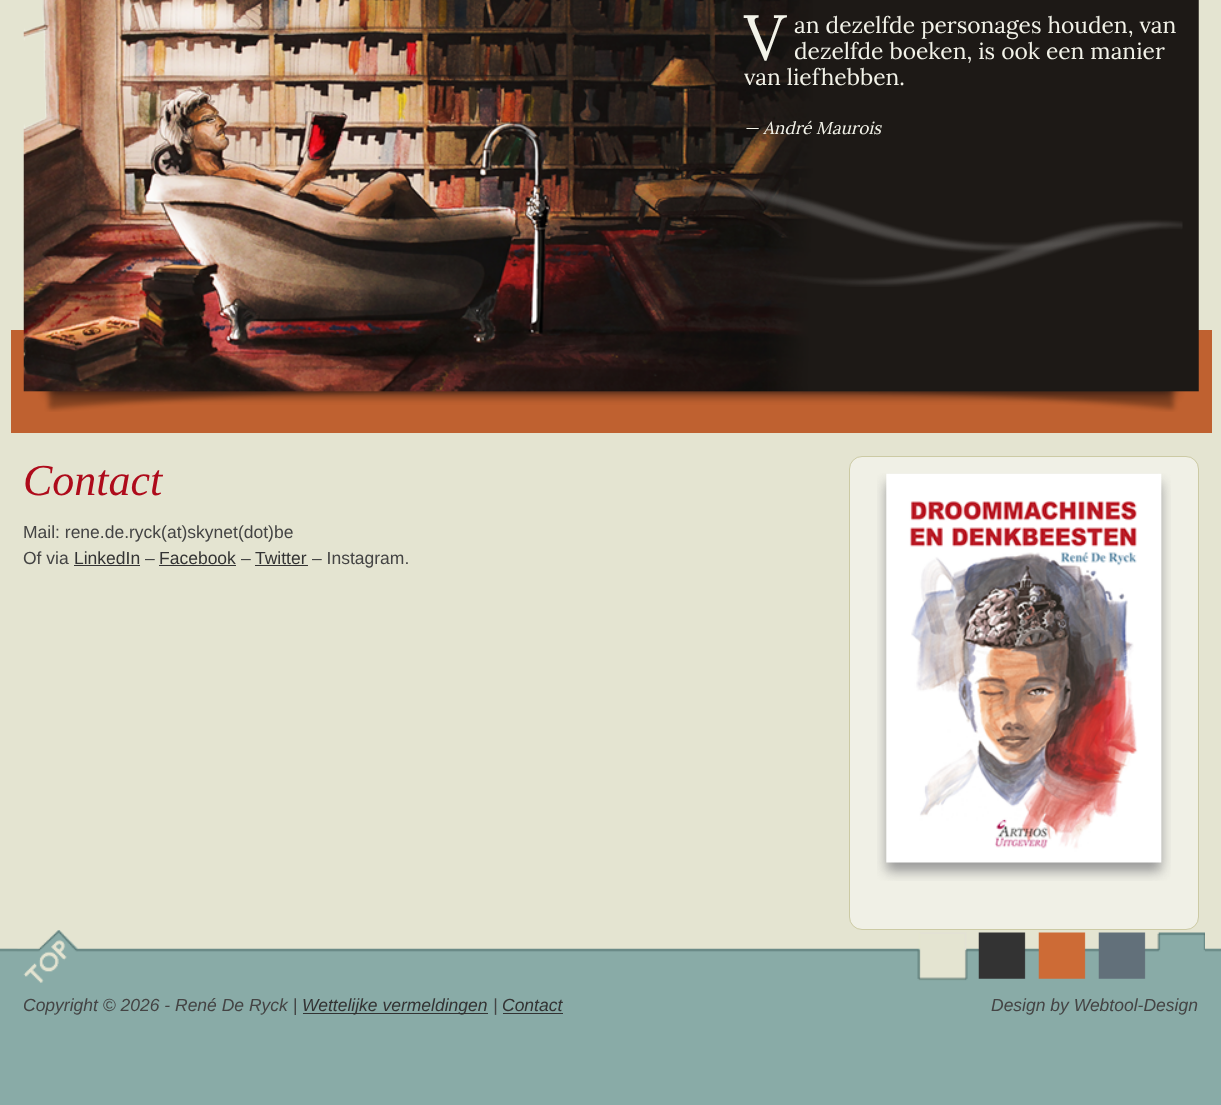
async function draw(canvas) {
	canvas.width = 1221;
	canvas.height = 1105;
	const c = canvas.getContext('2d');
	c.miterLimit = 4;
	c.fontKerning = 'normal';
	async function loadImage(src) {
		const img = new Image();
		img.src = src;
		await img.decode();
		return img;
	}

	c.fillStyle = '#e4e4d1';
	c.fillRect(0, 0, 1221, 1105);
	c.fillStyle = '#bf6130';
	c.fillRect(11, 330, 1201, 103);
	c.drawImage(await loadImage('img1.png'), 23, 0, 1176, 412);
	c.drawImage(await loadImage('img2.png'), 682, 184, 501, 103);
	c.font = '64px Lora';
	c.fillStyle = '#f3f3e9';
	c.fillText('V', 744, 60);
	c.font = '22.75px Lora';
	for (const [text, x, y] of [
		['an dezelfde personages houden, van', 794, 33],
		['dezelfde boeken, is ook een manier', 794, 59],
		['van liefhebben.', 744, 85],
	]) {
		c.fillText(text, x, y);
	}
	c.font = 'italic 17.25px Lora';
	c.fillText('— André Maurois', 744, 134);
	c.font = 'italic 44px Liberation Serif';
	c.fillStyle = '#ae0b1b';
	c.fillText('Contact', 23, 495);
	c.font = '17.5px Liberation Sans';
	c.fillStyle = '#444';
	c.fillText('Mail: rene.de.ryck(at)skynet(dot)be', 23, 538);
	c.fillText('Of via', 23, 564);
	c.fillStyle = '#333';
	c.fillText('LinkedIn', 74, 564);
	c.fillRect(74, 565, 66, 1);
	c.fillStyle = '#444';
	c.fillText('–', 145, 564);
	c.fillStyle = '#333';
	c.fillText('Facebook', 159, 564);
	c.fillRect(159, 565, 77, 1);
	c.fillStyle = '#444';
	c.fillText('–', 241, 564);
	c.fillStyle = '#333';
	c.fillText('Twitter', 255, 564);
	c.fillRect(255, 565, 53, 1);
	c.fillStyle = '#444';
	c.fillText('– Instagram.', 312, 564);
	c.fillStyle = '#f0f0e6';
	c.beginPath();
	c.roundRect(849.5, 456.5, 349, 473, 12.5);
	c.fill();
	c.strokeStyle = '#cccaa4';
	c.stroke();
	c.drawImage(await loadImage('img3.png'), 877, 473, 294, 408);
	c.drawImage(await loadImage('img4.png'), 0, 930, 1221, 175);
	c.font = 'italic 17.5px Liberation Sans';
	c.fillStyle = '#444';
	c.fillText('Copyright © 2026 - René De Ryck |', 23, 1011);
	c.fillStyle = '#333';
	c.fillRect(303, 1013, 185, 1);
	c.fillText('Wettelijke vermeldingen', 302, 1011);
	c.fillStyle = '#444';
	c.fillText('|', 493, 1011);
	c.fillStyle = '#333';
	c.fillText('Contact', 502, 1011);
	c.fillRect(503, 1013, 60, 1);
	c.fillStyle = '#444';
	c.fillText('Design by Webtool-Design', 991, 1011);
}

draw(document.querySelector('canvas'));
